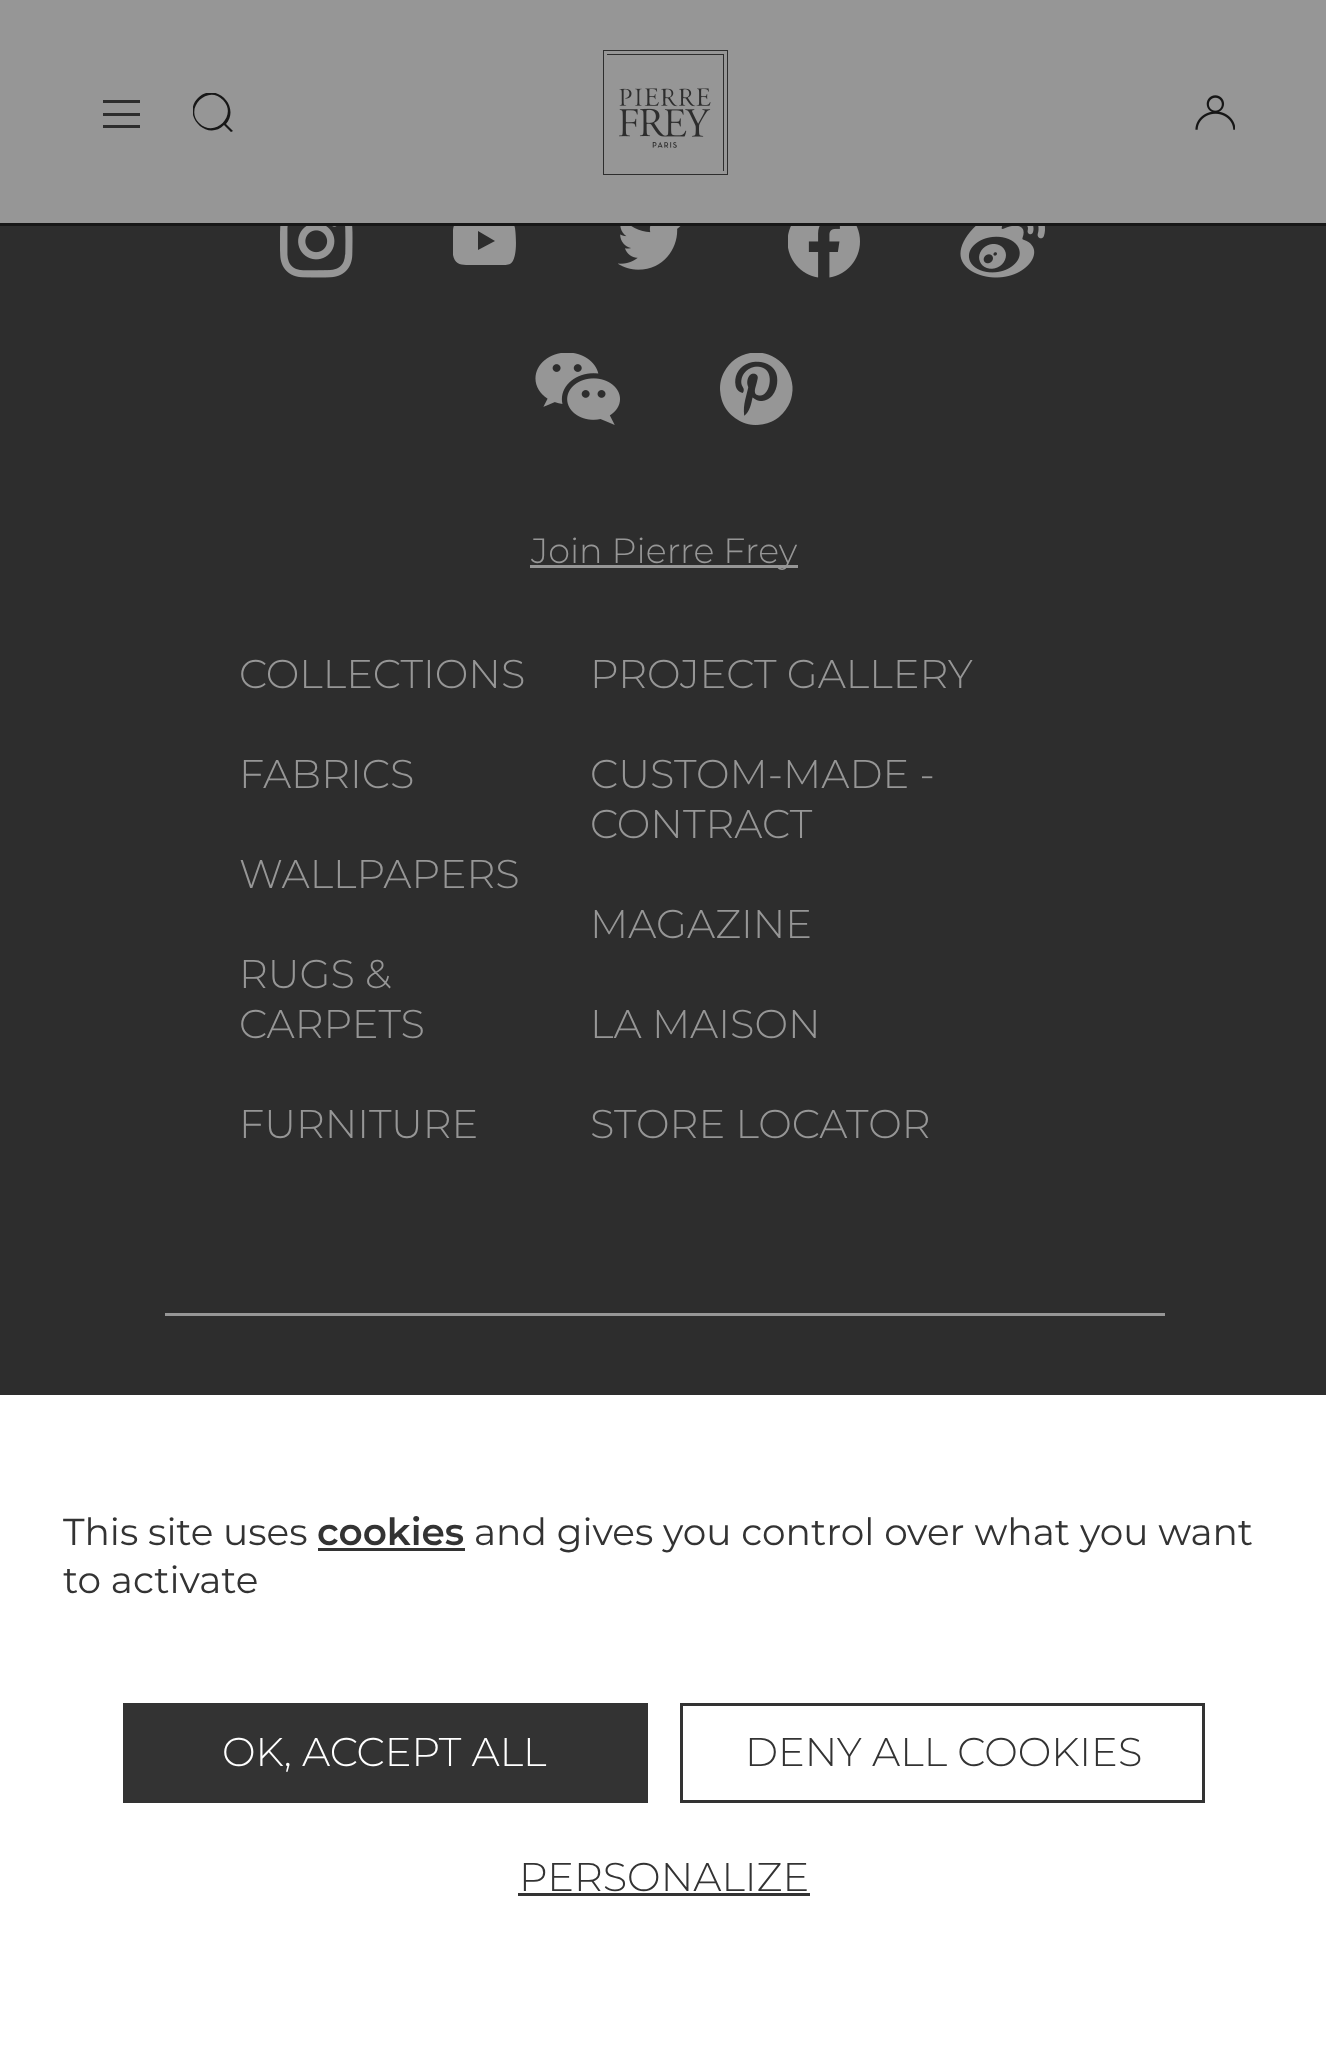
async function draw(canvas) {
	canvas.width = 1326;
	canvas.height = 2051;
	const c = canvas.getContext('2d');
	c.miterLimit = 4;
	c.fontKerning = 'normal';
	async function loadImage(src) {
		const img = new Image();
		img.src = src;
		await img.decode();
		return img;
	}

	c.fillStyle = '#2d2d2d';
	c.fillRect(0, 0, 1326, 2051);
	c.save();
	c.beginPath();
	c.rect(453, 218, 63, 47);
	c.clip();
	c.fillStyle = '#969696';
	c.beginPath();
	c.moveTo(515, 228);
	c.bezierCurveTo(513, 218, 508, 218, 499, 218);
	c.lineTo(480, 218);
	c.bezierCurveTo(475, 218, 463, 217, 459, 219);
	c.bezierCurveTo(450, 223, 452, 248, 453, 255);
	c.bezierCurveTo(455, 266, 463, 265, 472, 265);
	c.lineTo(489, 265);
	c.bezierCurveTo(493, 265, 506, 266, 510, 264);
	c.bezierCurveTo(518, 260, 516, 235, 515, 228);
	c.closePath();
	c.moveTo(478, 250);
	c.lineTo(478, 231);
	c.lineTo(495, 241);
	c.closePath();
	c.fill();
	c.restore();
	c.fillStyle = '#969696';
	c.fillRect(0, 0, 1326, 223);
	c.fillStyle = '#171717';
	c.fillRect(0, 223, 1326, 3);
	c.drawImage(await loadImage('img1.png'), 603, 50, 125, 125);
	for (const [x, y, w, h, color] of [
		[103, 100, 37, 3, '#2d2d2d'],
		[103, 113, 37, 3, '#2d2d2d'],
		[103, 125, 37, 3, '#2d2d2d'],
	]) {
		c.fillStyle = color;
		c.fillRect(x, y, w, h);
	}
	c.save();
	c.beginPath();
	c.rect(193, 93, 40, 40);
	c.clip();
	c.fillStyle = '#171717';
	c.beginPath();
	c.moveTo(223, 100);
	c.bezierCurveTo(208, 84, 184, 108, 199, 123);
	c.bezierCurveTo(215, 139, 238, 115, 223, 100);
	c.closePath();
	c.moveTo(198, 98);
	c.bezierCurveTo(215, 81, 241, 106, 226, 124);
	c.lineTo(233, 131);
	c.lineTo(231, 132);
	c.lineTo(224, 125);
	c.bezierCurveTo(207, 142, 181, 115, 198, 98);
	c.closePath();
	c.fill();
	c.restore();
	c.drawImage(await loadImage('img2.png'), 1195, 95, 40, 35);
	c.drawImage(await loadImage('img3.png'), 280, 226, 73, 52);
	c.drawImage(await loadImage('img4.png'), 618, 226, 63, 44);
	c.drawImage(await loadImage('img5.png'), 788, 226, 72, 52);
	c.drawImage(await loadImage('img6.png'), 960, 226, 85, 52);
	c.drawImage(await loadImage('img7.png'), 535, 353, 85, 72);
	c.drawImage(await loadImage('img8.png'), 720, 353, 73, 72);
	c.fillStyle = '#969696';
	c.fillRect(530, 565, 268, 3);
	c.font = '300 35px Montserrat';
	c.fillText('Join Pierre Frey', 531, 563);
	c.font = '300 40px Montserrat';
	for (const [text, x, y] of [
		['COLLECTIONS', 239, 688],
		['FABRICS', 239, 788],
		['WALLPAPERS', 239, 888],
		['RUGS &', 239, 988],
		['CARPETS', 239, 1038],
		['FURNITURE', 239, 1138],
		['PROJECT GALLERY', 590, 688],
		['CUSTOM-MADE -', 590, 788],
		['CONTRACT', 590, 838],
		['MAGAZINE', 590, 938],
		['LA MAISON', 590, 1038],
		['STORE LOCATOR', 590, 1138],
	]) {
		c.fillText(text, x, y);
	}
	c.fillRect(165, 1313, 1000, 3);
	c.fillStyle = '#fff';
	c.fillRect(0, 1395, 1326, 656);
	c.font = '37.5px Montserrat';
	c.fillStyle = '#333';
	c.fillText('This site uses', 63, 1545);
	c.font = '600 37.5px Montserrat';
	c.fillText('cookies', 317, 1545);
	c.fillRect(318, 1548, 147, 3);
	c.font = '37.5px Montserrat';
	c.fillText('and gives you control over what you want', 474, 1545);
	c.fillText('to activate', 63, 1593);
	c.fillRect(123, 1703, 525, 100);
	c.font = '300 40px Montserrat';
	c.fillStyle = '#fff';
	c.fillText('OK, ACCEPT ALL', 222, 1766);
	c.strokeStyle = '#333';
	c.lineWidth = 3;
	c.strokeRect(681.5, 1704.5, 522, 97);
	c.fillStyle = '#333';
	c.fillText('DENY ALL COOKIES', 745, 1766);
	c.fillText('PERSONALIZE', 519, 1891);
	c.fillRect(518, 1893, 292, 3);
}

draw(document.querySelector('canvas'));
